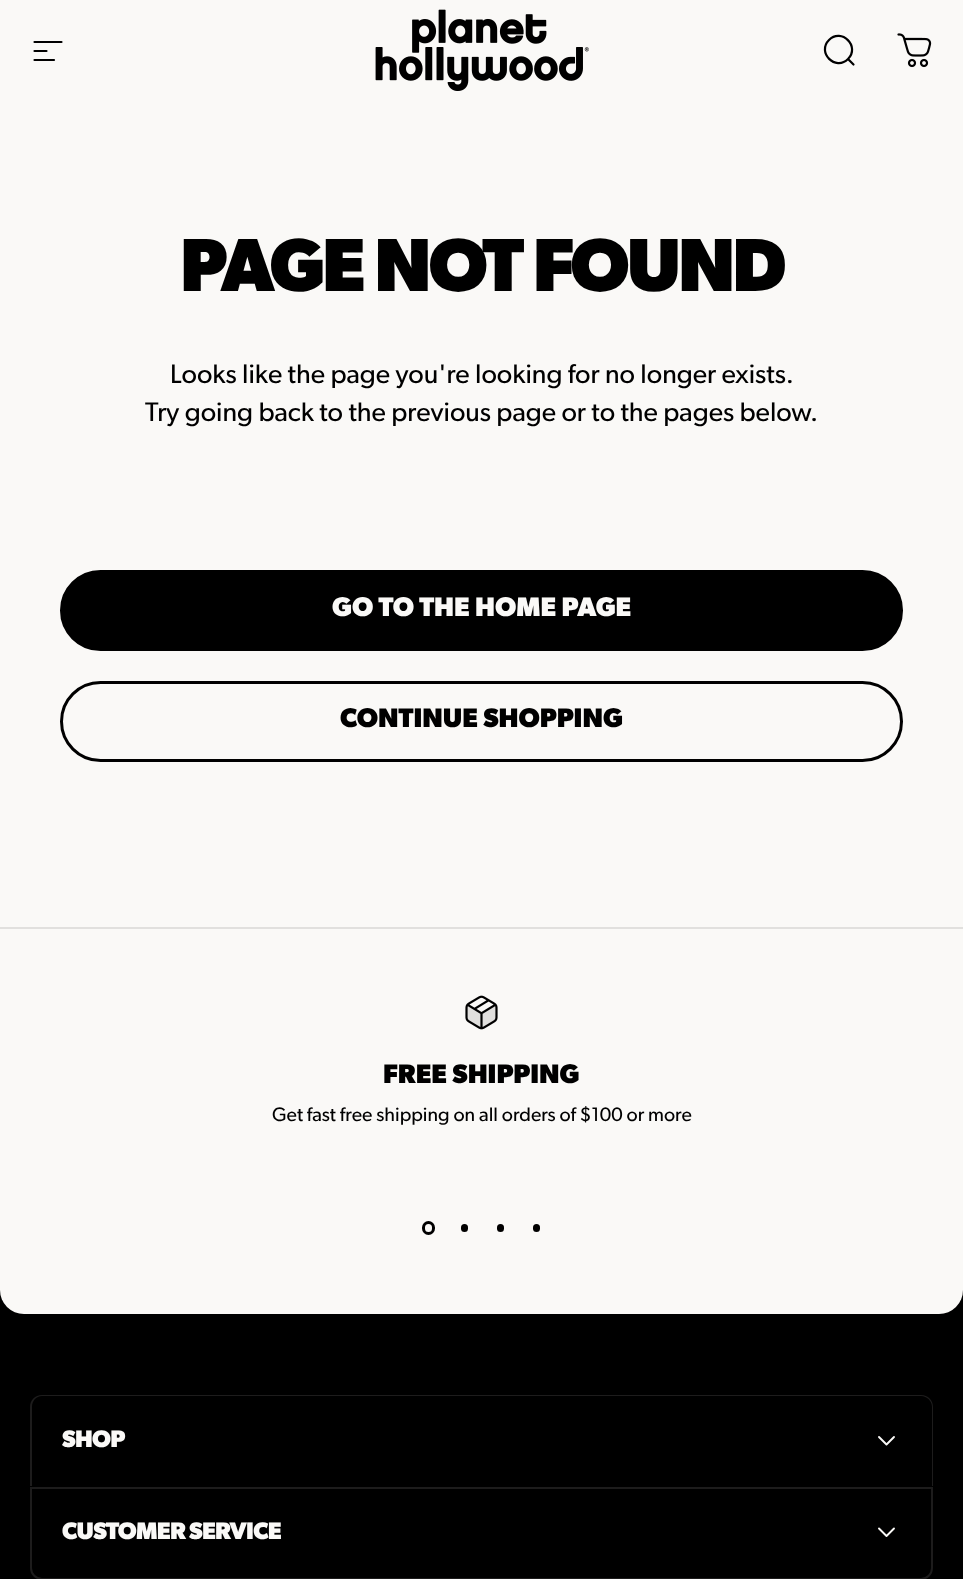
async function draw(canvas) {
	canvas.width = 963;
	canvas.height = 1579;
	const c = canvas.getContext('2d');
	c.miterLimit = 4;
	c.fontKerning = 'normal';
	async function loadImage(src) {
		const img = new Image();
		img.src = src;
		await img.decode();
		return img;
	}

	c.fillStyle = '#faf9f7';
	c.fillRect(0, 0, 963, 1579);
	c.beginPath();
	c.moveTo(34.5, 42);
	c.lineTo(61.5, 42);
	c.moveTo(34.5, 51);
	c.lineTo(46.5, 51);
	c.moveTo(34.5, 60);
	c.lineTo(54, 60);
	c.strokeStyle = '#000';
	c.lineWidth = 2.2;
	c.lineCap = 'round';
	c.stroke();
	c.drawImage(await loadImage('img1.png'), 375, 9, 214, 82);
	c.beginPath();
	c.moveTo(853.5, 64.5);
	c.lineTo(848, 59);
	c.moveTo(848, 59);
	c.bezierCurveTo(860.5, 46.5, 841.5, 27.5, 829, 40);
	c.bezierCurveTo(816.5, 52.5, 835.5, 71.5, 848, 59);
	c.closePath();
	c.stroke();
	c.drawImage(await loadImage('img2.png'), 897, 33, 35, 35);
	c.letterSpacing = '-3px';
	c.font = 'bold 75.25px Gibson';
	c.fillStyle = '#000';
	c.fillText('PAGE NOT FOUND', 180, 291);
	c.letterSpacing = '0px';
	c.font = '27px Gibson';
	c.fillText('Looks like the page you\'re looking for no longer exists.', 170, 383);
	c.fillText('Try going back to the previous page or to the pages below.', 145, 421);
	c.beginPath();
	c.roundRect(61.5, 571.5, 840, 78, 39);
	c.fill();
	c.lineWidth = 3;
	c.stroke();
	c.font = 'bold 27px Gibson';
	c.fillStyle = '#faf9f7';
	c.fillText('GO TO THE HOME PAGE', 332, 616);
	c.beginPath();
	c.roundRect(61.5, 682.5, 840, 78, 39);
	c.stroke();
	c.fillStyle = '#000';
	c.fillText('CONTINUE SHOPPING', 340, 727);
	c.fillRect(0, 1290, 963, 289);
	c.fillStyle = '#faf9f7';
	c.beginPath();
	c.roundRect(0, 927, 963, 387, [0, 0, 24, 24]);
	c.fill();
	c.fillStyle = '#e1e0de';
	c.fillRect(0, 927, 963, 2);
	c.drawImage(await loadImage('img3.png'), 465, 995, 33, 35);
	c.fillStyle = '#000';
	c.fillText('FREE SHIPPING', 383, 1083);
	c.font = '19.5px Gibson';
	c.fillText('Get fast free shipping on all orders of $100 or more', 272, 1121);
	c.beginPath();
	c.roundRect(423.5, 1222.5, 10, 11, 5);
	c.stroke();
	c.beginPath();
	c.roundRect(461, 1224, 7, 8, 3.5);
	c.fill();
	c.beginPath();
	c.roundRect(497, 1224, 7, 8, 3.5);
	c.fill();
	c.beginPath();
	c.roundRect(533, 1224, 7, 8, 3.5);
	c.fill();
	c.fillStyle = '#1d1c1c';
	c.beginPath();
	c.moveTo(42, 1395);
	c.lineTo(921, 1395);
	c.bezierCurveTo(928, 1395, 933, 1400, 933, 1407);
	c.lineTo(933, 1486);
	c.lineTo(30, 1486);
	c.lineTo(30, 1407);
	c.bezierCurveTo(30, 1400, 35, 1395, 42, 1395);
	c.closePath();
	c.moveTo(42, 1396);
	c.lineTo(921, 1396);
	c.bezierCurveTo(927, 1396, 932, 1401, 932, 1407);
	c.lineTo(932, 1486);
	c.lineTo(32, 1486);
	c.lineTo(32, 1407);
	c.bezierCurveTo(32, 1401, 36, 1396, 42, 1396);
	c.closePath();
	c.fill('evenodd');
	c.letterSpacing = '-0.75px';
	c.font = 'bold 24px Gibson';
	c.fillStyle = '#faf9f7';
	c.fillText('SHOP', 62, 1447);
	c.beginPath();
	c.moveTo(879, 1437);
	c.lineTo(886.5, 1444.5);
	c.lineTo(894, 1437);
	c.strokeStyle = '#faf9f7';
	c.lineWidth = 1.9;
	c.lineJoin = 'round';
	c.stroke();
	c.beginPath();
	c.moveTo(31, 1488);
	c.lineTo(932, 1488);
	c.lineTo(932, 1568);
	c.bezierCurveTo(932, 1574, 927, 1579, 921, 1579);
	c.lineTo(42, 1579);
	c.bezierCurveTo(36, 1579, 31, 1574, 31, 1568);
	c.closePath();
	c.strokeStyle = '#1d1c1c';
	c.lineWidth = 2;
	c.lineJoin = 'miter';
	c.stroke();
	c.fillText('CUSTOMER SERVICE', 62, 1539);
	c.beginPath();
	c.moveTo(879, 1528.5);
	c.lineTo(886.5, 1536);
	c.lineTo(894, 1528.5);
	c.strokeStyle = '#faf9f7';
	c.lineWidth = 1.9;
	c.lineJoin = 'round';
	c.stroke();
}

draw(document.querySelector('canvas'));
